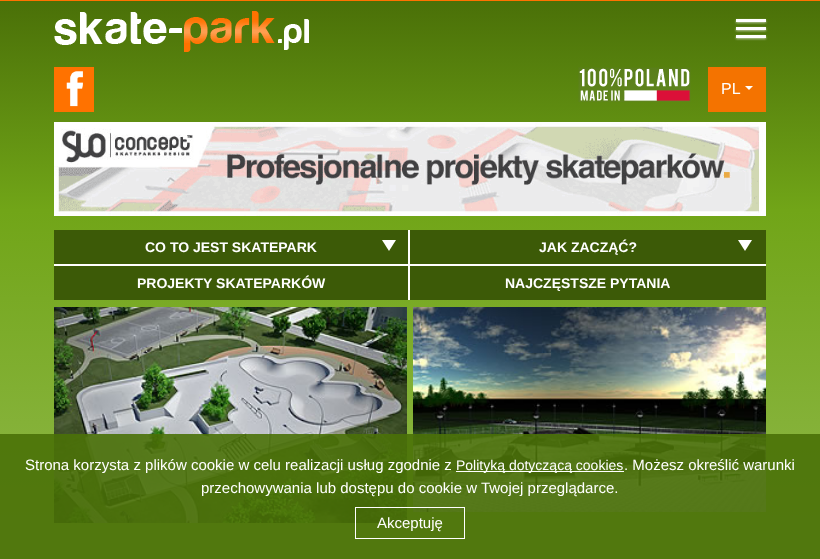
async function draw(canvas) {
	canvas.width = 820;
	canvas.height = 559;
	const c = canvas.getContext('2d');
	c.miterLimit = 4;
	c.fontKerning = 'normal';
	async function loadImage(src) {
		const img = new Image();
		img.src = src;
		await img.decode();
		return img;
	}
	let gradient;

	c.fillStyle = '#fff';
	c.fillRect(0, 0, 820, 559);
	gradient = c.createLinearGradient(410, 1, 410, 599);
	gradient.addColorStop(0, '#4a7008');
	gradient.addColorStop(0.35, '#71a518');
	gradient.addColorStop(1, '#94bb51');
	c.fillStyle = gradient;
	c.fillRect(0, 1, 820, 558);
	c.fillStyle = '#ff7200';
	c.fillRect(0, 0, 820, 1);
	c.drawImage(await loadImage('img1.png'), 54, 11, 255, 41);
	c.fillStyle = '#ffffff99';
	c.filter = 'blur(1px)';
	c.beginPath();
	c.rect(736, 20, 30, 3);
	c.fill();
	c.filter = 'none';
	c.fillStyle = '#fff';
	c.fillRect(736, 19, 30, 3);
	c.fillStyle = '#ffffff99';
	c.filter = 'blur(1px)';
	c.beginPath();
	c.rect(736, 28, 30, 3);
	c.fill();
	c.filter = 'none';
	c.fillStyle = '#fff';
	c.fillRect(736, 27, 30, 3);
	c.fillStyle = '#ffffff99';
	c.filter = 'blur(1px)';
	c.beginPath();
	c.rect(736, 36, 30, 3);
	c.fill();
	c.filter = 'none';
	c.fillStyle = '#fff';
	c.fillRect(736, 35, 30, 3);
	c.fillStyle = '#ff7200';
	c.fillRect(54, 67, 40, 45);
	c.drawImage(await loadImage('img2.png'), 66, 71, 17, 36);
	c.drawImage(await loadImage('img3.png'), 578, 67, 113, 35);
	c.fillStyle = '#f47300';
	c.fillRect(708, 67, 58, 45);
	c.font = '16px Liberation Sans';
	c.fillStyle = '#fff';
	c.fillText('PL', 721, 94);
	c.beginPath();
	c.moveTo(745, 86);
	c.lineTo(753, 86);
	c.lineTo(749, 90);
	c.closePath();
	c.fill();
	c.drawImage(await loadImage('img4.png'), 54, 122, 712, 94);
	for (const [x, y, w, h, color] of [
		[54, 230, 712, 70, '#3c5a07'],
		[54, 264, 712, 2, '#fff'],
		[408, 230, 2, 34, '#fff'],
	]) {
		c.fillStyle = color;
		c.fillRect(x, y, w, h);
	}
	c.font = 'bold 14px Liberation Sans';
	c.fillText('CO TO JEST SKATEPARK', 145, 252);
	c.beginPath();
	c.moveTo(382, 240);
	c.lineTo(396, 240);
	c.lineTo(389, 251);
	c.closePath();
	c.fill();
	c.fillText('JAK ZACZĄĆ?', 539, 252);
	c.beginPath();
	c.moveTo(738, 240);
	c.lineTo(752, 240);
	c.lineTo(745, 251);
	c.closePath();
	c.fill();
	c.fillRect(408, 266, 2, 34);
	c.fillText('PROJEKTY SKATEPARKÓW', 137, 288);
	c.fillText('NAJCZĘSTSZE PYTANIA', 505, 288);
	c.drawImage(await loadImage('img5.png'), 54, 307, 353, 216);
	c.drawImage(await loadImage('img6.png'), 413, 307, 353, 205);
	c.fillStyle = '#4a7108e6';
	c.fillRect(0, 434, 820, 125);
	c.font = '15px Liberation Sans';
	c.fillStyle = '#fff';
	c.fillText('Strona korzysta z plików cookie w celu realizacji usług zgodnie z', 25, 470);
	c.fillRect(456, 471, 168, 1);
	c.font = '14px Liberation Sans';
	c.fillText('Polityką dotyczącą cookies', 456, 470);
	c.font = '15px Liberation Sans';
	c.fillText('. Możesz określić warunki', 624, 470);
	c.fillText('przechowywania lub dostępu do cookie w Twojej przeglądarce.', 201, 493);
	c.strokeStyle = '#fff';
	c.strokeRect(355.5, 507.5, 109, 31);
	c.fillText('Akceptuję', 377, 528);
}

draw(document.querySelector('canvas'));
